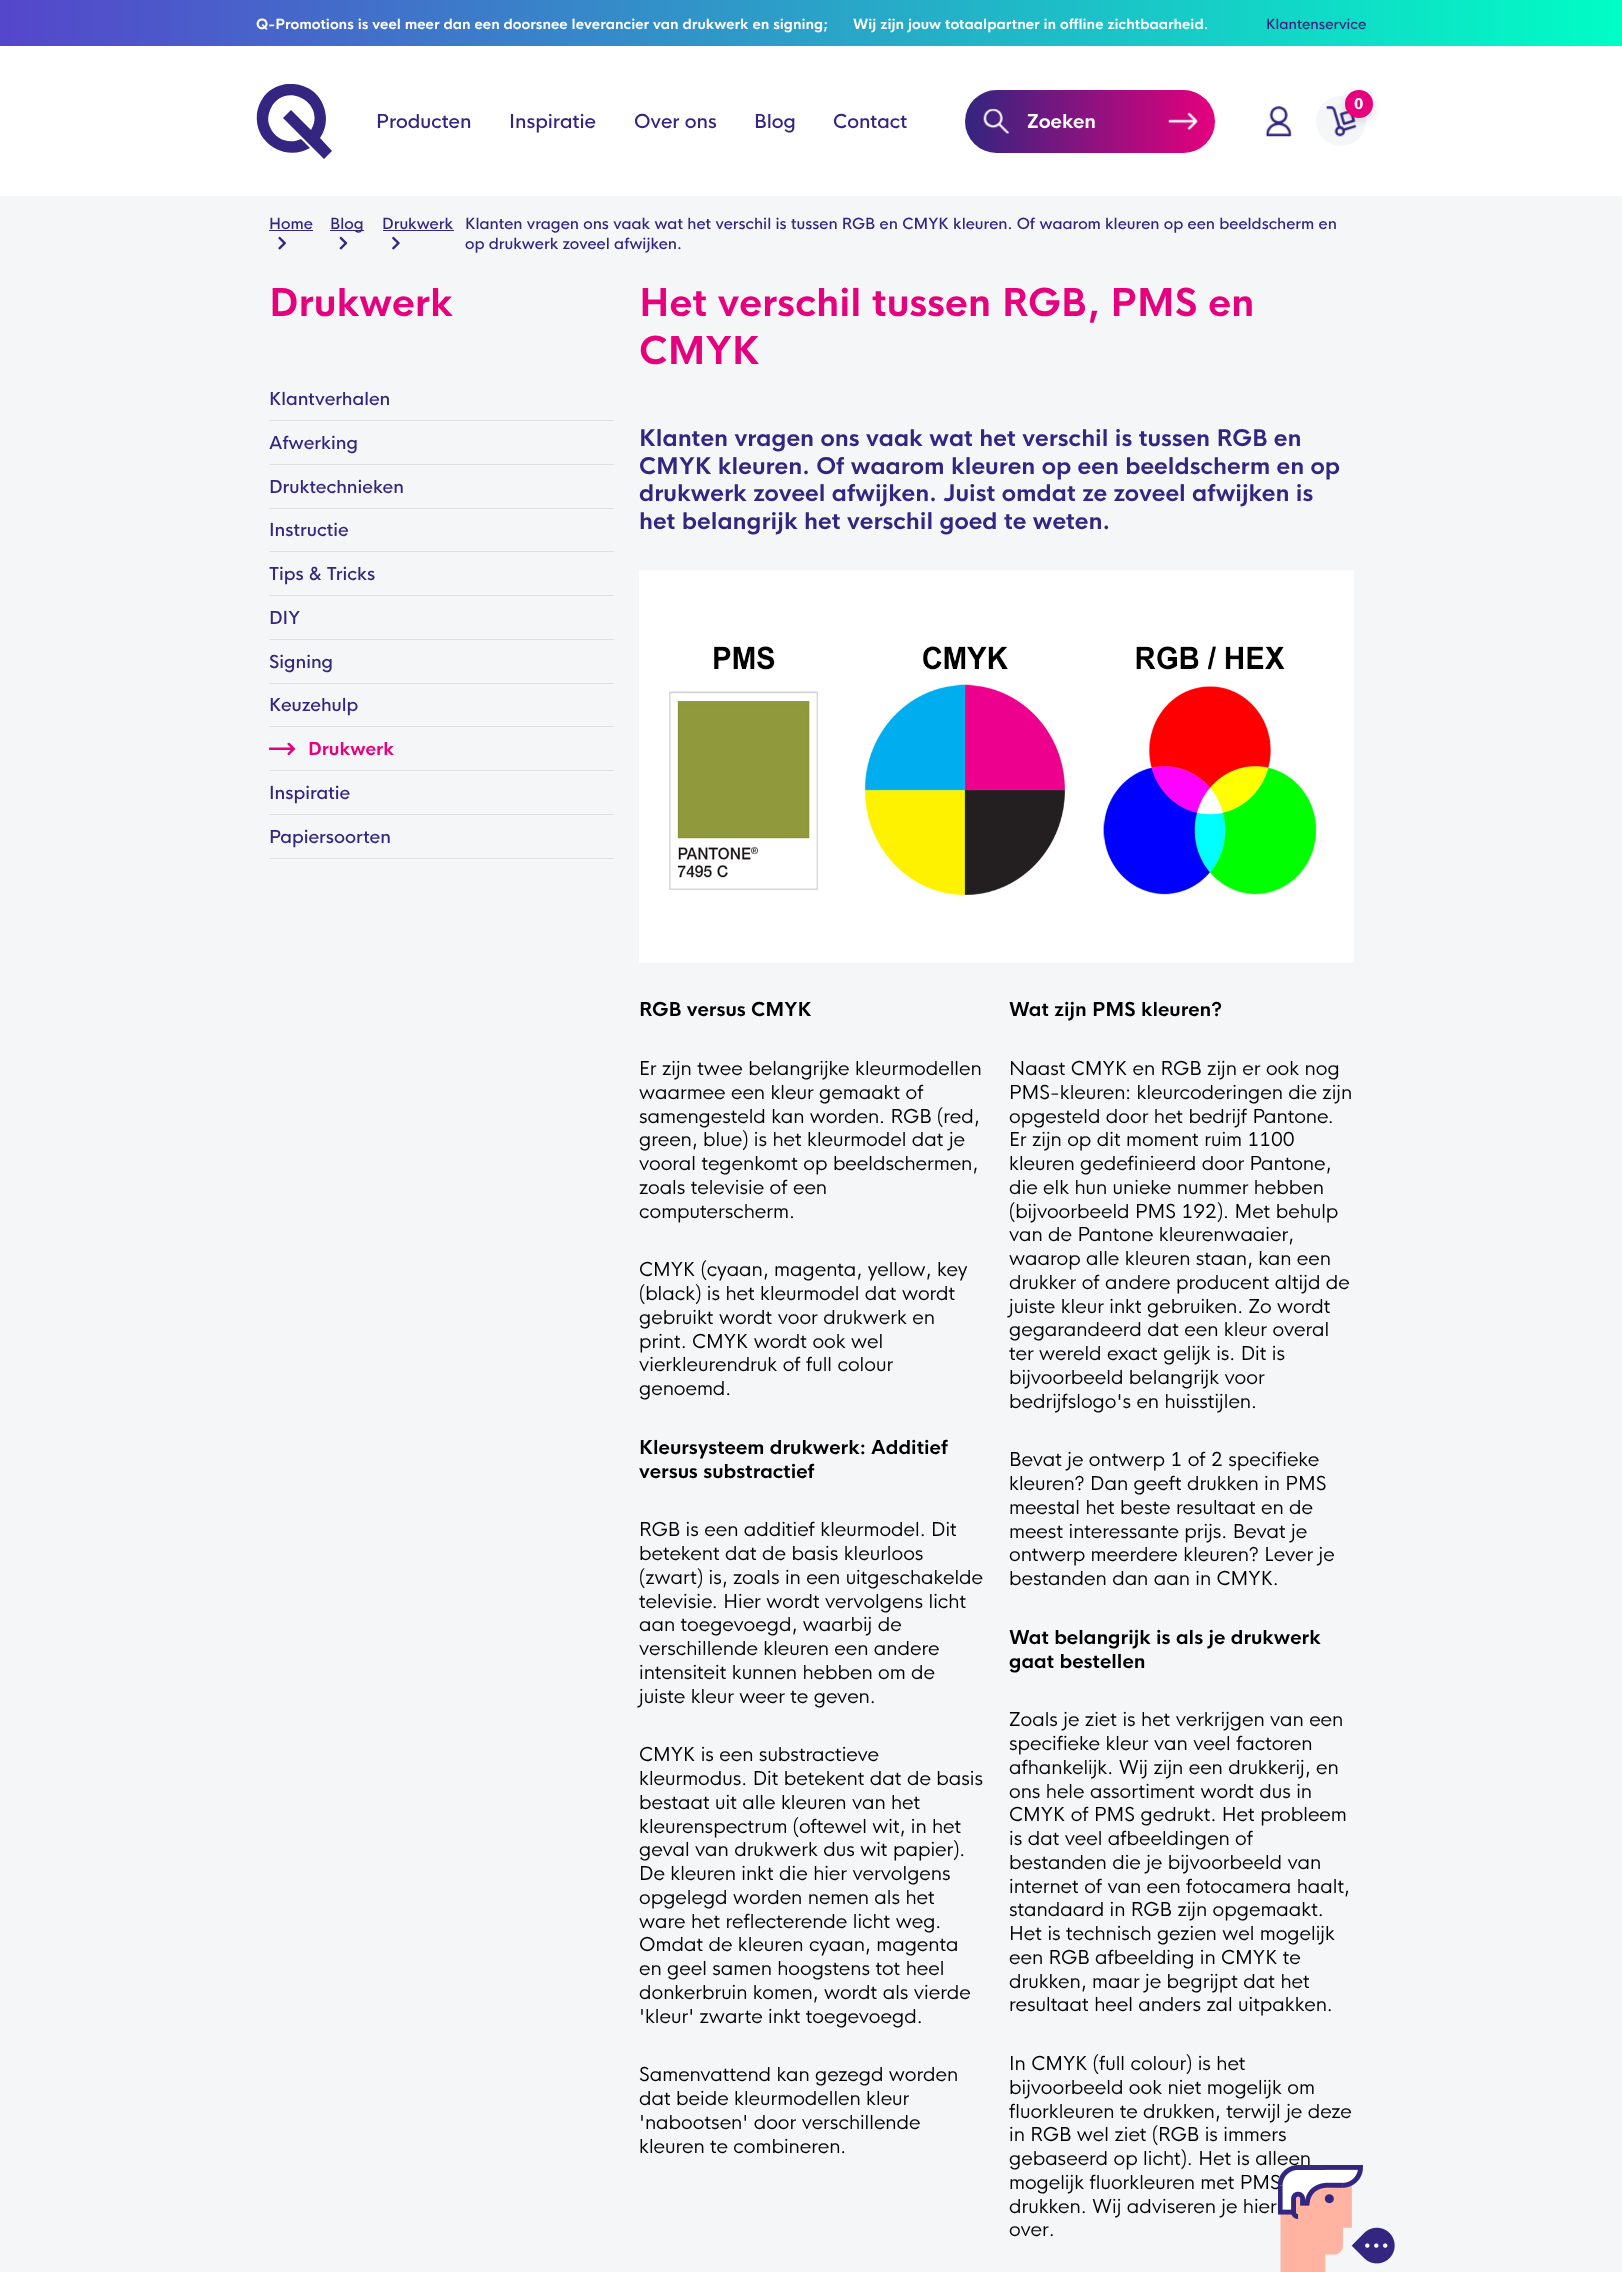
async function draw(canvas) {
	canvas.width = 1622;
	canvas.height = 2272;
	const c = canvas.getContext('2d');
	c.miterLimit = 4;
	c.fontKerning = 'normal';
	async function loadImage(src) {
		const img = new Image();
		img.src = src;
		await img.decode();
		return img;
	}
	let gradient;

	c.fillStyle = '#f4f6f7';
	c.fillRect(0, 0, 1622, 2272);
	c.fillStyle = '#fff';
	c.fillRect(0, 46, 1622, 150);
	gradient = c.createLinearGradient(0, 23, 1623, 23);
	gradient.addColorStop(0, '#5546cb');
	gradient.addColorStop(1, '#00fdc5');
	c.fillStyle = gradient;
	c.fillRect(0, 0, 1622, 46);
	c.font = 'bold 13.75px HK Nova';
	c.fillStyle = '#fff';
	c.fillText('Q-Promotions is veel meer dan een doorsnee leverancier van drukwerk en signing;', 256, 29);
	c.fillText('Wij zijn jouw totaalpartner in offline zichtbaarheid.', 853, 29);
	c.font = '500 13.75px HK Nova';
	c.fillStyle = '#332580';
	c.fillText('Klantenservice', 1266, 29);
	c.fillStyle = '#f4f6f7';
	c.beginPath();
	c.arc(1341, 121, 25, 0, 2 * Math.PI);
	c.fill();
	c.drawImage(await loadImage('img1.png'), 1325, 106, 32, 31);
	c.fillStyle = '#00000026';
	c.filter = 'blur(4px)';
	c.beginPath();
	c.roundRect(1345, 94, 28, 27, 13.5);
	c.fill();
	c.filter = 'none';
	c.fillStyle = '#e6007e';
	c.beginPath();
	c.arc(1359, 104, 14, 0, 2 * Math.PI);
	c.fill();
	c.font = 'bold 16px Fira Sans';
	c.fillStyle = '#fff';
	c.fillText('0', 1354, 109);
	c.drawImage(await loadImage('img2.png'), 1265, 106, 27, 31);
	c.save();
	c.beginPath();
	c.rect(256, 84, 77, 75);
	c.clip();
	c.fillStyle = '#332580';
	c.beginPath();
	c.moveTo(320, 138);
	c.bezierCurveTo(330, 124, 327, 104, 314, 92);
	c.bezierCurveTo(300, 81, 280, 81, 267, 93);
	c.bezierCurveTo(255, 105, 253, 125, 264, 139);
	c.bezierCurveTo(275, 153, 295, 157, 310, 148);
	c.lineTo(301, 139);
	c.bezierCurveTo(289, 145, 275, 139, 270, 127);
	c.bezierCurveTo(267, 121, 268, 114, 271, 108);
	c.bezierCurveTo(285, 80, 327, 103, 311, 130);
	c.lineTo(291, 110);
	c.lineTo(283, 118);
	c.lineTo(324, 159);
	c.lineTo(332, 151);
	c.closePath();
	c.fill();
	c.restore();
	c.font = '500 18.75px HK Nova';
	c.fillStyle = '#332580';
	for (const [text, x, y] of [
		['Producten', 376, 128],
		['Inspiratie', 509, 128],
		['Over ons', 634, 128],
		['Blog', 754, 128],
		['Contact', 833, 128],
	]) {
		c.fillText(text, x, y);
	}
	gradient = c.createLinearGradient(965, 121, 1215, 121);
	gradient.addColorStop(0, '#332580');
	gradient.addColorStop(1, '#e6007e');
	c.fillStyle = gradient;
	c.beginPath();
	c.roundRect(965, 90, 250, 63, 31.5);
	c.fill();
	c.drawImage(await loadImage('img3.png'), 983, 108, 26, 26);
	c.font = 'bold 18.75px HK Nova';
	c.fillStyle = '#fff';
	c.fillText('Zoeken', 1027, 128);
	c.drawImage(await loadImage('img4.png'), 1168, 112, 30, 19);
	c.font = '500 15px HK Nova';
	c.fillStyle = '#332580';
	c.fillText('Home', 269, 229);
	c.fillRect(269, 230, 44, 1);
	c.drawImage(await loadImage('img5.png'), 278, 236, 8, 14);
	c.fillRect(330, 230, 34, 1);
	c.fillText('Blog', 330, 229);
	c.drawImage(await loadImage('img6.png'), 339, 236, 9, 14);
	c.fillText('Drukwerk', 382, 229);
	c.fillRect(383, 230, 71, 1);
	c.drawImage(await loadImage('img7.png'), 392, 236, 8, 14);
	c.fillText('Klanten vragen ons vaak wat het verschil is tussen RGB en CMYK kleuren. Of waarom kleuren op een beeldscherm en', 465, 229);
	c.fillText('op drukwerk zoveel afwijken.', 465, 249);
	c.font = 'bold 37.5px HK Nova';
	c.fillStyle = '#e6007e';
	c.fillText('Drukwerk', 269, 316);
	c.fillStyle = '#e0e0e0';
	c.fillRect(269, 420, 345, 1);
	c.font = '500 17.5px HK Nova';
	c.fillStyle = '#332580';
	c.fillText('Klantverhalen', 269, 405);
	c.fillStyle = '#e0e0e0';
	c.fillRect(269, 464, 345, 1);
	c.fillStyle = '#332580';
	c.fillText('Afwerking', 269, 449);
	c.fillStyle = '#e0e0e0';
	c.fillRect(269, 508, 345, 1);
	c.fillStyle = '#332580';
	c.fillText('Druktechnieken', 269, 493);
	c.fillStyle = '#e0e0e0';
	c.fillRect(269, 551, 345, 1);
	c.fillStyle = '#332580';
	c.fillText('Instructie', 269, 536);
	c.fillStyle = '#e0e0e0';
	c.fillRect(269, 595, 345, 1);
	c.fillStyle = '#332580';
	c.fillText('Tips & Tricks', 269, 580);
	c.fillStyle = '#e0e0e0';
	c.fillRect(269, 639, 345, 1);
	c.fillStyle = '#332580';
	c.fillText('DIY', 269, 624);
	c.fillStyle = '#e0e0e0';
	c.fillRect(269, 683, 345, 1);
	c.fillStyle = '#332580';
	c.fillText('Signing', 269, 668);
	c.fillStyle = '#e0e0e0';
	c.fillRect(269, 726, 345, 1);
	c.fillStyle = '#332580';
	c.fillText('Keuzehulp', 269, 711);
	c.fillStyle = '#e0e0e0';
	c.fillRect(269, 770, 345, 1);
	c.drawImage(await loadImage('img8.png'), 269, 742, 26, 13);
	c.font = 'bold 17.5px HK Nova';
	c.fillStyle = '#e6007e';
	c.fillText('Drukwerk', 308, 755);
	c.fillStyle = '#e0e0e0';
	c.fillRect(269, 814, 345, 1);
	c.font = '500 17.5px HK Nova';
	c.fillStyle = '#332580';
	c.fillText('Inspiratie', 269, 799);
	c.fillStyle = '#e0e0e0';
	c.fillRect(269, 858, 345, 1);
	c.fillStyle = '#332580';
	c.fillText('Papiersoorten', 269, 843);
	c.font = 'bold 37.5px HK Nova';
	c.fillStyle = '#e6007e';
	c.fillText('Het verschil tussen RGB, PMS en', 639, 316);
	c.fillText('CMYK', 639, 364);
	c.font = 'bold 22.5px HK Nova';
	c.fillStyle = '#332580';
	for (const [text, x, y] of [
		['Klanten vragen ons vaak wat het verschil is tussen RGB en', 639, 446],
		['CMYK kleuren. Of waarom kleuren op een beeldscherm en op', 639, 474],
		['drukwerk zoveel afwijken. Juist omdat ze zoveel afwijken is', 639, 501],
		['het belangrijk het verschil goed te weten.', 639, 529],
	]) {
		c.fillText(text, x, y);
	}
	c.drawImage(await loadImage('img9.png'), 639, 570, 715, 393);
	c.font = 'bold 18.75px HK Nova';
	c.fillStyle = '#000';
	c.fillText('RGB versus CMYK', 639, 1016);
	c.font = '18.75px HK Nova';
	for (const [text, x, y] of [
		['Er zijn twee belangrijke kleurmodellen', 639, 1075],
		['waarmee een kleur gemaakt of', 639, 1099],
		['samengesteld kan worden. RGB (red,', 639, 1123],
		['green, blue) is het kleurmodel dat je', 639, 1146],
		['vooral tegenkomt op beeldschermen,', 639, 1170],
		['zoals televisie of een', 639, 1194],
		['computerscherm.', 639, 1218],
		['CMYK (cyaan, magenta, yellow, key', 639, 1276],
		['(black) is het kleurmodel dat wordt', 639, 1300],
		['gebruikt wordt voor drukwerk en', 639, 1324],
		['print. CMYK wordt ook wel', 639, 1348],
		['vierkleurendruk of full colour', 639, 1371],
		['genoemd.', 639, 1395],
	]) {
		c.fillText(text, x, y);
	}
	c.font = 'bold 18.75px HK Nova';
	c.fillText('Kleursysteem drukwerk: Additief', 639, 1454);
	c.fillText('versus substractief', 639, 1478);
	c.font = '18.75px HK Nova';
	for (const [text, x, y] of [
		['RGB is een additief kleurmodel. Dit', 639, 1536],
		['betekent dat de basis kleurloos', 639, 1560],
		['(zwart) is, zoals in een uitgeschakelde', 639, 1584],
		['televisie. Hier wordt vervolgens licht', 639, 1608],
		['aan toegevoegd, waarbij de', 639, 1631],
		['verschillende kleuren een andere', 639, 1655],
		['intensiteit kunnen hebben om de', 639, 1679],
		['juiste kleur weer te geven.', 639, 1703],
		['CMYK is een substractieve', 639, 1761],
		['kleurmodus. Dit betekent dat de basis', 639, 1785],
		['bestaat uit alle kleuren van het', 639, 1809],
		['kleurenspectrum (oftewel wit, in het', 639, 1833],
		['geval van drukwerk dus wit papier).', 639, 1856],
		['De kleuren inkt die hier vervolgens', 639, 1880],
		['opgelegd worden nemen als het', 639, 1904],
		['ware het reflecterende licht weg.', 639, 1928],
		['Omdat de kleuren cyaan, magenta', 639, 1951],
		['en geel samen hoogstens tot heel', 639, 1975],
		['donkerbruin komen, wordt als vierde', 639, 1999],
		['\'kleur\' zwarte inkt toegevoegd.', 639, 2023],
		['Samenvattend kan gezegd worden', 639, 2081],
		['dat beide kleurmodellen kleur', 639, 2105],
		['\'nabootsen\' door verschillende', 639, 2129],
		['kleuren te combineren.', 639, 2153],
	]) {
		c.fillText(text, x, y);
	}
	c.font = 'bold 18.75px HK Nova';
	c.fillText('Wat zijn PMS kleuren?', 1009, 1016);
	c.font = '18.75px HK Nova';
	for (const [text, x, y] of [
		['Naast CMYK en RGB zijn er ook nog', 1009, 1075],
		['PMS-kleuren: kleurcoderingen die zijn', 1009, 1099],
		['opgesteld door het bedrijf Pantone.', 1009, 1123],
		['Er zijn op dit moment ruim 1100', 1009, 1146],
		['kleuren gedefinieerd door Pantone,', 1009, 1170],
		['die elk hun unieke nummer hebben', 1009, 1194],
		['(bijvoorbeeld PMS 192). Met behulp', 1009, 1218],
		['van de Pantone kleurenwaaier,', 1009, 1241],
		['waarop alle kleuren staan, kan een', 1009, 1265],
		['drukker of andere producent altijd de', 1009, 1289],
		['juiste kleur inkt gebruiken. Zo wordt', 1009, 1313],
		['gegarandeerd dat een kleur overal', 1009, 1336],
		['ter wereld exact gelijk is. Dit is', 1009, 1360],
		['bijvoorbeeld belangrijk voor', 1009, 1384],
		['bedrijfslogo\'s en huisstijlen.', 1009, 1408],
		['Bevat je ontwerp 1 of 2 specifieke', 1009, 1466],
		['kleuren? Dan geeft drukken in PMS', 1009, 1490],
		['meestal het beste resultaat en de', 1009, 1514],
		['meest interessante prijs. Bevat je', 1009, 1538],
		['ontwerp meerdere kleuren? Lever je', 1009, 1561],
		['bestanden dan aan in CMYK.', 1009, 1585],
	]) {
		c.fillText(text, x, y);
	}
	c.font = 'bold 18.75px HK Nova';
	c.fillText('Wat belangrijk is als je drukwerk', 1009, 1644);
	c.fillText('gaat bestellen', 1009, 1668);
	c.font = '18.75px HK Nova';
	for (const [text, x, y] of [
		['Zoals je ziet is het verkrijgen van een', 1009, 1726],
		['specifieke kleur van veel factoren', 1009, 1750],
		['afhankelijk. Wij zijn een drukkerij, en', 1009, 1774],
		['ons hele assortiment wordt dus in', 1009, 1798],
		['CMYK of PMS gedrukt. Het probleem', 1009, 1821],
		['is dat veel afbeeldingen of', 1009, 1845],
		['bestanden die je bijvoorbeeld van', 1009, 1869],
		['internet of van een fotocamera haalt,', 1009, 1893],
		['standaard in RGB zijn opgemaakt.', 1009, 1916],
		['Het is technisch gezien wel mogelijk', 1009, 1940],
		['een RGB afbeelding in CMYK te', 1009, 1964],
		['drukken, maar je begrijpt dat het', 1009, 1988],
		['resultaat heel anders zal uitpakken.', 1009, 2011],
		['In CMYK (full colour) is het', 1009, 2070],
		['bijvoorbeeld ook niet mogelijk om', 1009, 2094],
		['fluorkleuren te drukken, terwijl je deze', 1009, 2118],
		['in RGB wel ziet (RGB is immers', 1009, 2141],
		['gebaseerd op licht). Het is alleen', 1009, 2165],
		['mogelijk fluorkleuren met PMS', 1009, 2189],
		['drukken. Wij adviseren je hier', 1009, 2213],
		['over.', 1009, 2236],
	]) {
		c.fillText(text, x, y);
	}
	c.drawImage(await loadImage('img10.png'), 1278, 2165, 117, 107);
}

draw(document.querySelector('canvas'));
